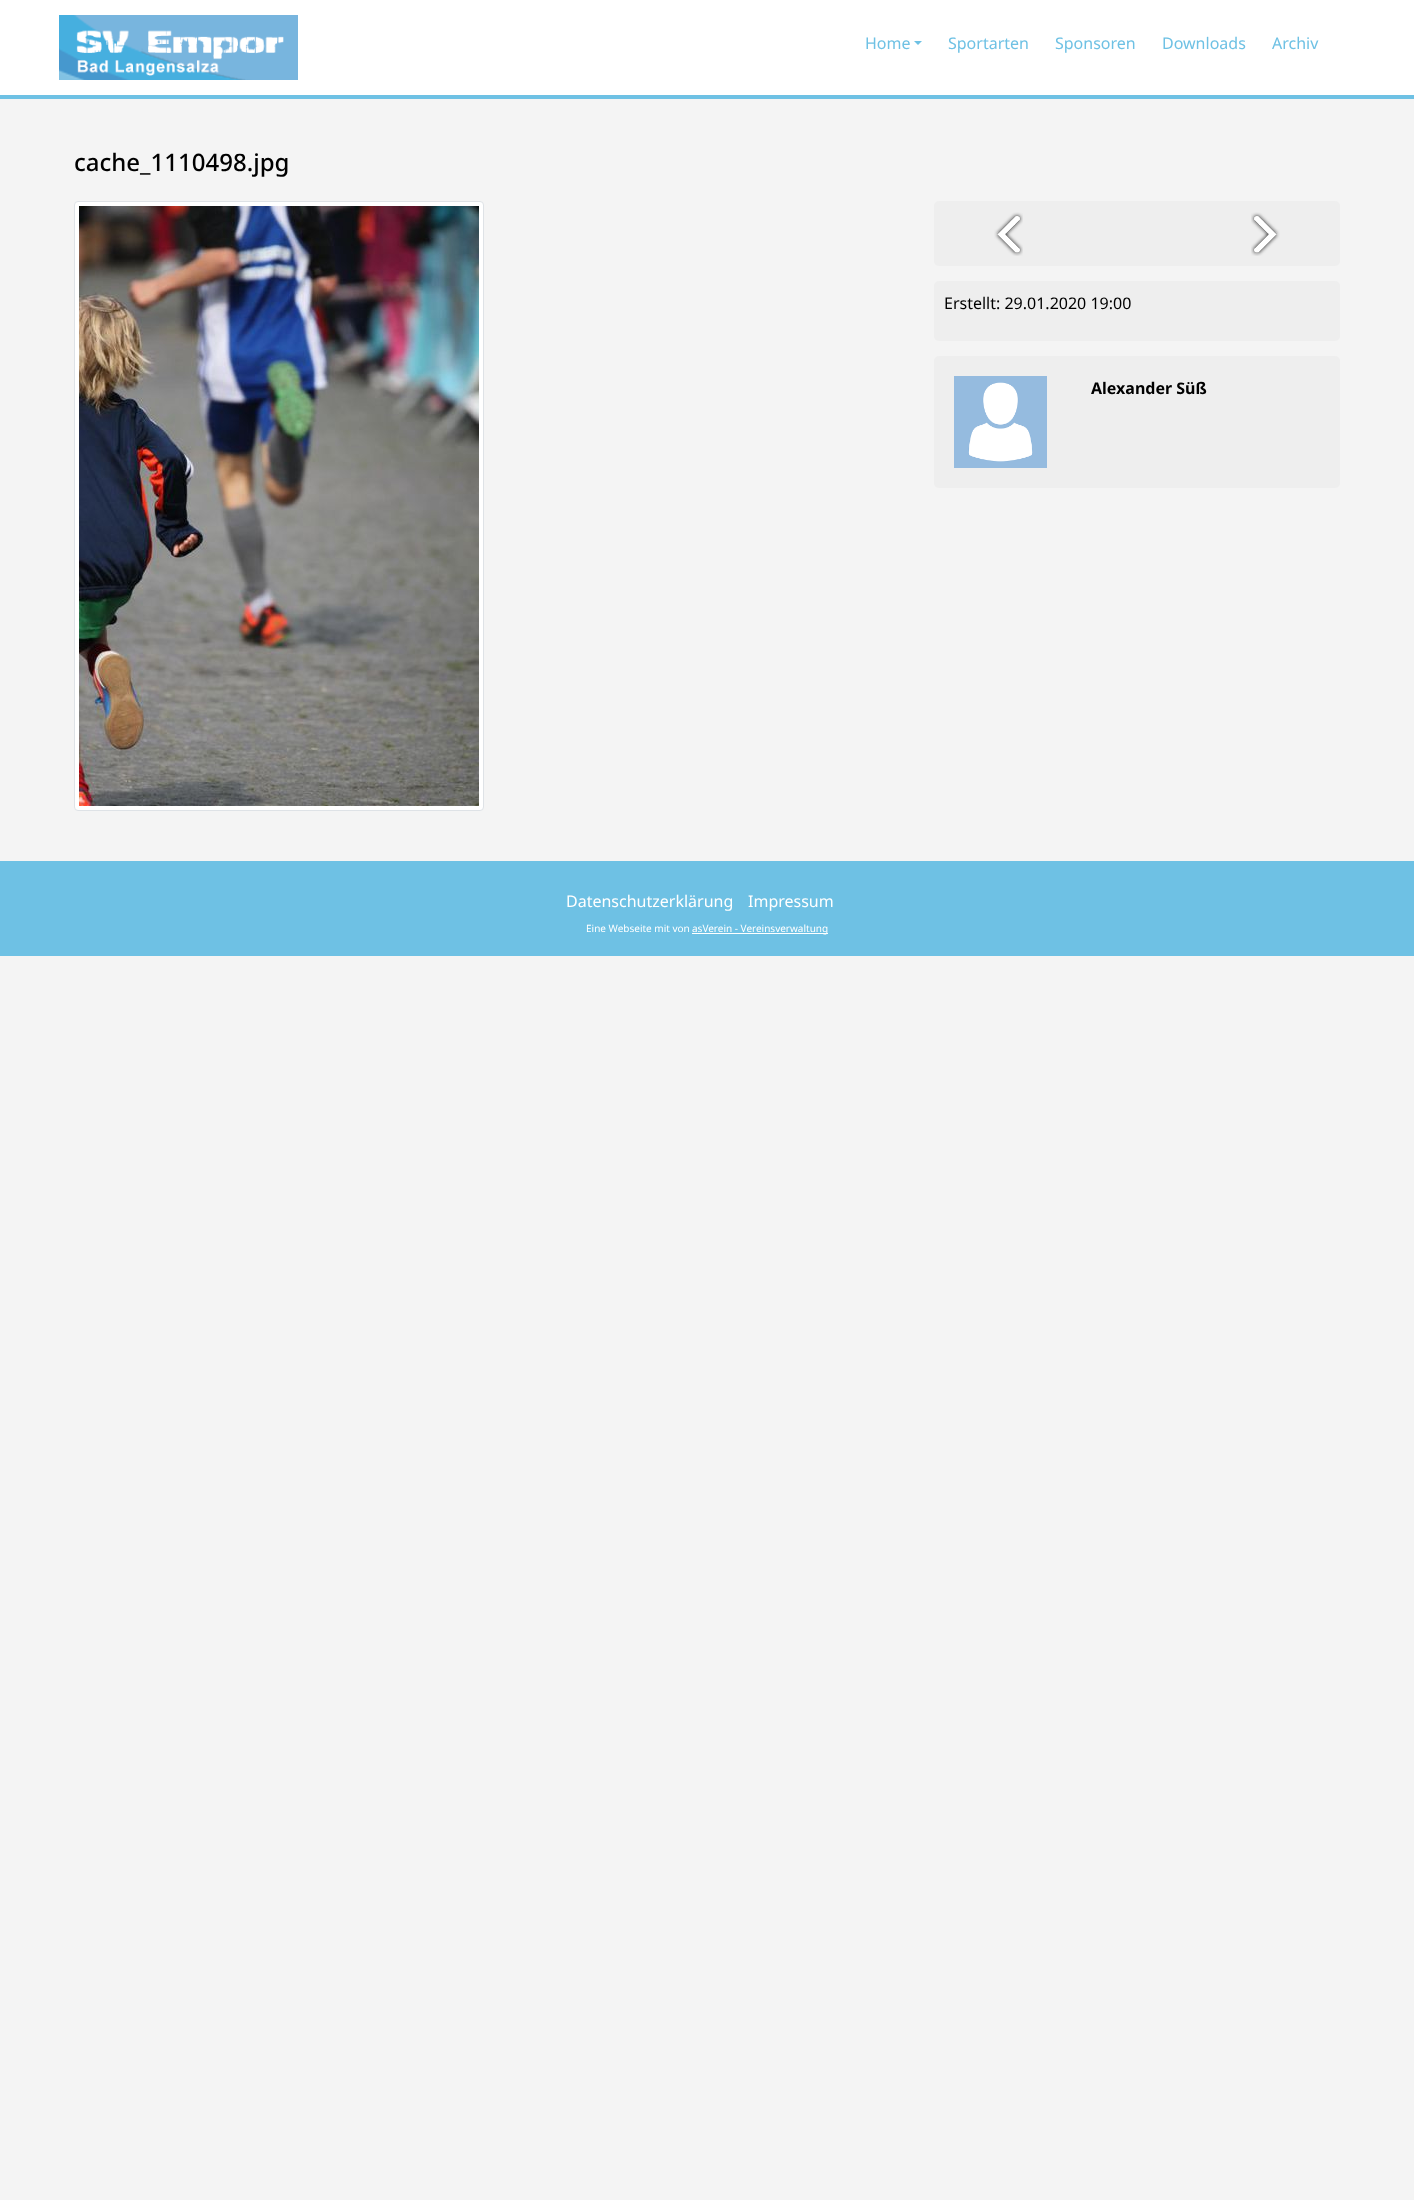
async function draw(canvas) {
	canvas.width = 1414;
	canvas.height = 2200;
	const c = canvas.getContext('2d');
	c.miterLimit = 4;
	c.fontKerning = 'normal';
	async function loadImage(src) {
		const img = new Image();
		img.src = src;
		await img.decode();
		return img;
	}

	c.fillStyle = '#f4f4f4';
	c.fillRect(0, 0, 1414, 2200);
	c.fillStyle = '#fff';
	c.fillRect(0, 0, 1414, 95);
	c.fillStyle = '#6ec1e4';
	c.fillRect(0, 95, 1414, 4);
	c.drawImage(await loadImage('img1.png'), 59, 15, 239, 65);
	c.font = '16px Noto Sans';
	c.fillText('Home', 865, 49);
	c.beginPath();
	c.moveTo(914, 41);
	c.lineTo(922, 41);
	c.lineTo(918, 45);
	c.closePath();
	c.fill();
	for (const [text, x, y] of [
		['Sportarten', 948, 49],
		['Sponsoren', 1055, 49],
		['Downloads', 1162, 49],
		['Archiv', 1272, 49],
	]) {
		c.fillText(text, x, y);
	}
	c.font = '500 24px Noto Sans';
	c.fillStyle = '#000';
	c.fillText('cache_1110498.jpg', 74, 171);
	c.fillStyle = '#fff';
	c.beginPath();
	c.roundRect(74.5, 201.5, 409, 609, 3.5);
	c.fill();
	c.strokeStyle = '#dee2e6';
	c.stroke();
	c.drawImage(await loadImage('img2.png'), 79, 206, 400, 600);
	c.fillStyle = '#eee';
	c.beginPath();
	c.roundRect(934, 201, 406, 65, 5);
	c.fill();
	c.drawImage(await loadImage('img3.png'), 994, 212, 29, 44);
	c.drawImage(await loadImage('img4.png'), 1251, 212, 29, 44);
	c.beginPath();
	c.roundRect(934, 281, 406, 60, 5);
	c.fill();
	c.font = '16px Noto Sans';
	c.fillStyle = '#000';
	c.fillText('Erstellt: 29.01.2020 19:00', 944, 309);
	c.fillStyle = '#eee';
	c.beginPath();
	c.roundRect(934, 356, 406, 132, 5);
	c.fill();
	c.drawImage(await loadImage('img5.png'), 954, 376, 93, 92);
	c.font = 'bold 16px Noto Sans';
	c.fillStyle = '#000';
	c.fillText('Alexander Süß', 1091, 394);
	c.fillStyle = '#6ec1e4';
	c.fillRect(0, 861, 1414, 95);
	c.font = '16px Noto Sans';
	c.fillStyle = '#fff';
	c.fillText('Datenschutzerklärung', 566, 907);
	c.fillText('Impressum', 748, 907);
	c.font = '10px Noto Sans';
	c.fillText('Eine Webseite mit von', 586, 932);
	c.fillRect(692, 933, 136, 1);
	c.fillText('asVerein - Vereinsverwaltung', 692, 932);
}

draw(document.querySelector('canvas'));
